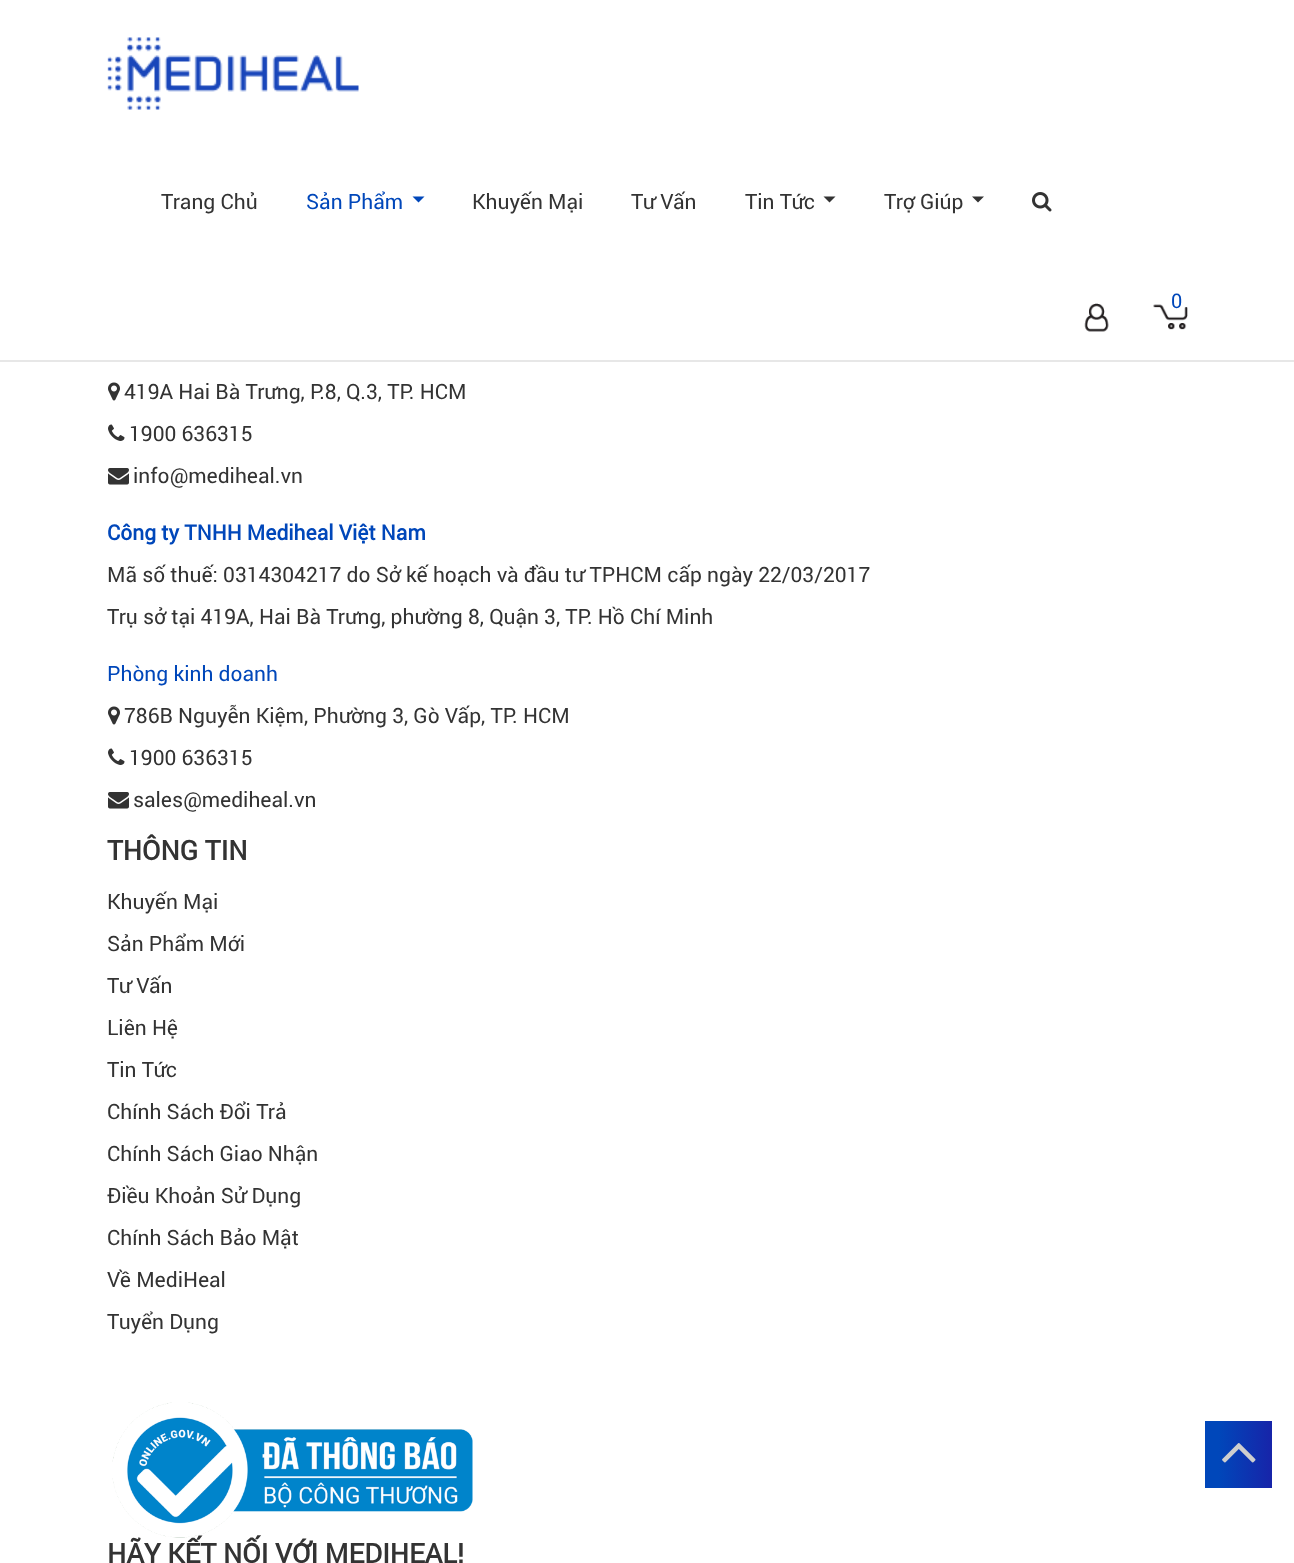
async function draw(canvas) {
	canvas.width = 1294;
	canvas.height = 1563;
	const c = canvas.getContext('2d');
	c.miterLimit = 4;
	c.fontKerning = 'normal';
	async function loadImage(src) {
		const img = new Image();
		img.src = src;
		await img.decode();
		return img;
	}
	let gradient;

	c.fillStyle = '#fff';
	c.fillRect(0, 0, 1294, 1563);
	c.fillStyle = '#e7e7e7';
	c.fillRect(0, 360, 1294, 2);
	c.drawImage(await loadImage('img1.png'), 107, 37, 252, 73);
	c.font = '21px Roboto';
	c.fillStyle = '#333';
	c.fillText('Trang Chủ', 161, 209);
	c.fillStyle = '#0047ba';
	c.fillText('Sản Phẩm', 306, 209);
	c.beginPath();
	c.moveTo(412.5, 196.5);
	c.lineTo(424.5, 196.5);
	c.lineTo(418.5, 202.5);
	c.closePath();
	c.fill();
	c.fillStyle = '#333';
	for (const [text, x, y] of [
		['Khuyến Mại', 472, 209],
		['Tư Vấn', 631, 209],
		['Tin Tức', 745, 209],
	]) {
		c.fillText(text, x, y);
	}
	c.beginPath();
	c.moveTo(823.5, 196.5);
	c.lineTo(835.5, 196.5);
	c.lineTo(829.5, 202.5);
	c.closePath();
	c.fill();
	c.fillText('Trợ Giúp', 884, 209);
	c.beginPath();
	c.moveTo(972, 196.5);
	c.lineTo(984, 196.5);
	c.lineTo(978, 202.5);
	c.closePath();
	c.fill();
	c.drawImage(await loadImage('img2.png'), 1032, 192, 20, 20);
	c.drawImage(await loadImage('img3.png'), 1153, 304, 35, 26);
	c.font = '20px Roboto';
	c.fillStyle = '#0047ba';
	c.fillText('0', 1171, 308);
	c.drawImage(await loadImage('img4.png'), 1084, 303, 25, 29);
	c.drawImage(await loadImage('img5.png'), 108, 382, 12, 19);
	c.font = '21px Roboto';
	c.fillStyle = '#333';
	c.fillText('419A Hai Bà Trưng, P.8, Q.3, TP. HCM', 124, 399);
	c.drawImage(await loadImage('img6.png'), 108, 424, 17, 17);
	c.fillText('1900 636315', 129, 441);
	c.drawImage(await loadImage('img7.png'), 108, 468, 21, 17);
	c.fillText('info@mediheal.vn', 133, 483);
	c.font = 'bold 21px Roboto';
	c.fillStyle = '#0047ba';
	c.fillText('Công ty TNHH Mediheal Việt Nam', 107, 540);
	c.font = '21px Roboto';
	c.fillStyle = '#333';
	c.fillText('Mã số thuế: 0314304217 do Sở kế hoạch và đầu tư TPHCM cấp ngày 22/03/2017', 107, 582);
	c.fillText('Trụ sở tại 419A, Hai Bà Trưng, phường 8, Quận 3, TP. Hồ Chí Minh', 107, 624);
	c.fillStyle = '#0047ba';
	c.fillText('Phòng kinh doanh', 107, 681);
	c.drawImage(await loadImage('img5.png'), 108, 706, 12, 19);
	c.fillStyle = '#333';
	c.fillText('786B Nguyễn Kiệm, Phường 3, Gò Vấp, TP. HCM', 124, 723);
	c.drawImage(await loadImage('img6.png'), 108, 748, 17, 17);
	c.fillText('1900 636315', 129, 765);
	c.drawImage(await loadImage('img7.png'), 108, 792, 21, 17);
	c.fillText('sales@mediheal.vn', 133, 807);
	c.font = 'bold 27px Roboto';
	c.fillText('THÔNG TIN', 107, 860);
	c.font = '21px Roboto';
	for (const [text, x, y] of [
		['Khuyến Mại', 107, 909],
		['Sản Phẩm Mới', 107, 951],
		['Tư Vấn', 107, 993],
		['Liên Hệ', 107, 1035],
		['Tin Tức', 107, 1077],
		['Chính Sách Đổi Trả', 107, 1119],
		['Chính Sách Giao Nhận', 107, 1161],
		['Điều Khoản Sử Dụng', 107, 1203],
		['Chính Sách Bảo Mật', 107, 1245],
		['Về MediHeal', 107, 1287],
		['Tuyển Dụng', 107, 1329],
	]) {
		c.fillText(text, x, y);
	}
	c.drawImage(await loadImage('img8.png'), 112, 1402, 361, 136);
	c.font = 'bold 27px Roboto';
	c.fillText('HÃY KẾT NỐI VỚI MEDIHEAL!', 107, 1563);
	gradient = c.createLinearGradient(1205, 1454, 1272, 1454);
	gradient.addColorStop(0.2, '#0047ba');
	gradient.addColorStop(1, '#1724a9');
	c.fillStyle = gradient;
	c.fillRect(1205, 1421, 67, 67);
	c.drawImage(await loadImage('img9.png'), 1222, 1443, 34, 20);
}

draw(document.querySelector('canvas'));
